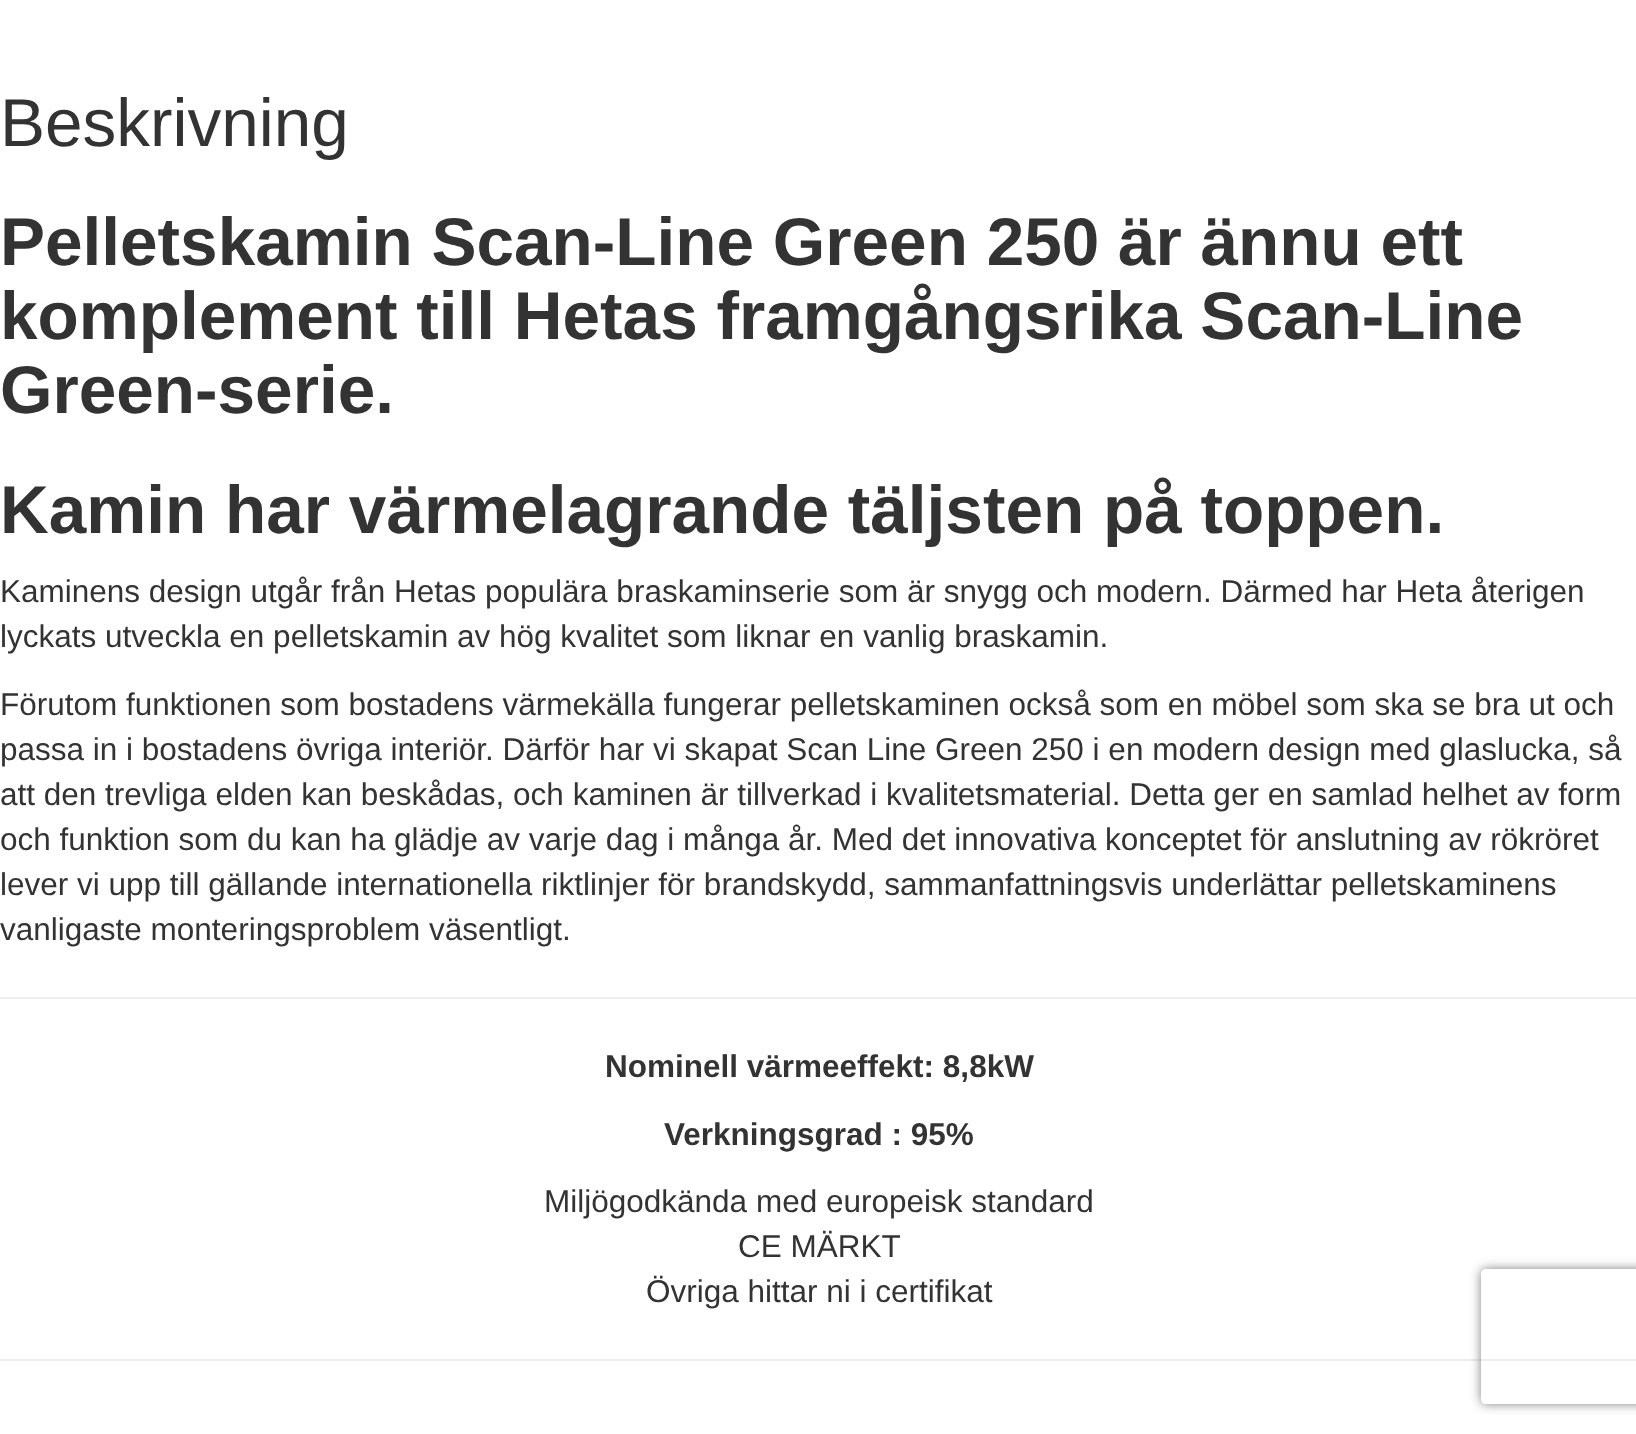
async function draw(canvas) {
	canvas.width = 1636;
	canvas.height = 1434;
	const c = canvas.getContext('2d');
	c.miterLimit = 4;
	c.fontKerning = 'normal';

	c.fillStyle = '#fff';
	c.fillRect(0, 0, 1636, 1434);
	c.font = '67.5px Liberation Sans';
	c.fillStyle = '#333';
	c.fillText('Beskrivning', 0, 146);
	c.font = 'bold 67.5px Liberation Sans';
	for (const [text, x, y] of [
		['Pelletskamin Scan-Line Green 250 är ännu ett', 0, 265],
		['komplement till Hetas framgångsrika Scan-Line', 0, 339],
		['Green-serie.', 0, 413],
		['Kamin har värmelagrande täljsten på toppen.', 0, 533],
	]) {
		c.fillText(text, x, y);
	}
	c.font = '31.5px Liberation Sans';
	for (const [text, x, y] of [
		['Kaminens design utgår från Hetas populära braskaminserie som är snygg och modern. Därmed har Heta återigen', 0, 602],
		['lyckats utveckla en pelletskamin av hög kvalitet som liknar en vanlig braskamin.', 0, 647],
		['Förutom funktionen som bostadens värmekälla fungerar pelletskaminen också som en möbel som ska se bra ut och', 0, 715],
		['passa in i bostadens övriga interiör. Därför har vi skapat Scan Line Green 250 i en modern design med glaslucka, så', 0, 760],
		['att den trevliga elden kan beskådas, och kaminen är tillverkad i kvalitetsmaterial. Detta ger en samlad helhet av form', 0, 805],
		['och funktion som du kan ha glädje av varje dag i många år. Med det innovativa konceptet för anslutning av rökröret', 0, 850],
		['lever vi upp till gällande internationella riktlinjer för brandskydd, sammanfattningsvis underlättar pelletskaminens', 0, 895],
		['vanligaste monteringsproblem väsentligt.', 0, 940],
	]) {
		c.fillText(text, x, y);
	}
	c.fillStyle = '#eee';
	c.fillRect(0, 997, 1636, 2);
	c.font = 'bold 31.5px Liberation Sans';
	c.fillStyle = '#333';
	c.fillText('Nominell värmeeffekt: 8,8kW', 605, 1077);
	c.fillText('Verkningsgrad : 95%', 664, 1145);
	c.font = '31.5px Liberation Sans';
	for (const [text, x, y] of [
		['Miljögodkända med europeisk standard', 544, 1212],
		['CE MÄRKT', 738, 1257],
		['Övriga hittar ni i certifikat', 646, 1302],
	]) {
		c.fillText(text, x, y);
	}
	c.fillStyle = '#eee';
	c.fillRect(0, 1359, 1636, 2);
	c.save();
	c.beginPath();
	c.moveTo(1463, 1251);
	c.lineTo(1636, 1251);
	c.lineTo(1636, 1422);
	c.lineTo(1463, 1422);
	c.closePath();
	c.moveTo(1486, 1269);
	c.lineTo(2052, 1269);
	c.bezierCurveTo(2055, 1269, 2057, 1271, 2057, 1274);
	c.lineTo(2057, 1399);
	c.bezierCurveTo(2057, 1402, 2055, 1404, 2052, 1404);
	c.lineTo(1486, 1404);
	c.bezierCurveTo(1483, 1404, 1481, 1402, 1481, 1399);
	c.lineTo(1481, 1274);
	c.bezierCurveTo(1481, 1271, 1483, 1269, 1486, 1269);
	c.closePath();
	c.clip('evenodd');
	c.fillStyle = '#808080';
	c.filter = 'blur(5.5px)';
	c.beginPath();
	c.roundRect(1481, 1269, 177, 135, 5);
	c.fill();
	c.filter = 'none';
	c.restore();
}

draw(document.querySelector('canvas'));
